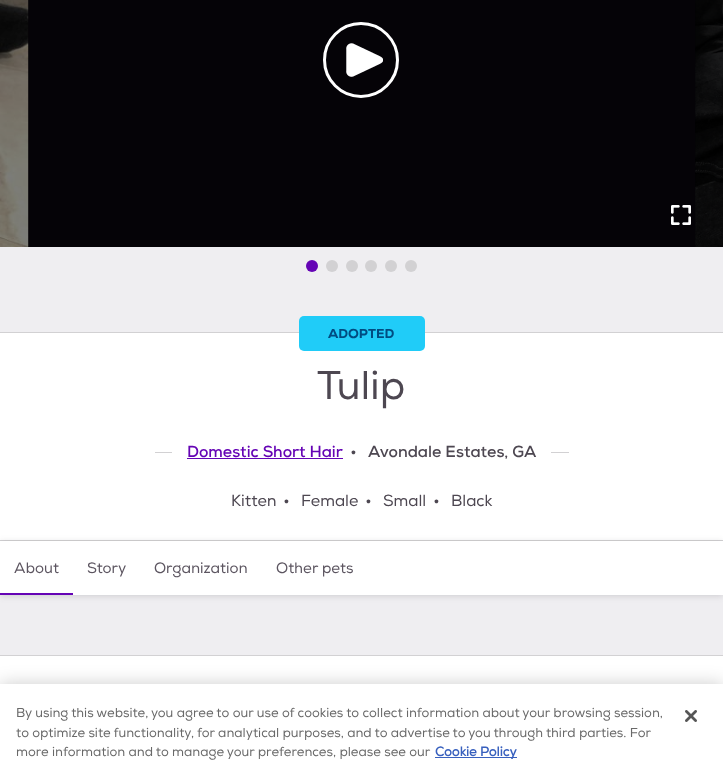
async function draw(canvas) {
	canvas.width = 723;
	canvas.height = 773;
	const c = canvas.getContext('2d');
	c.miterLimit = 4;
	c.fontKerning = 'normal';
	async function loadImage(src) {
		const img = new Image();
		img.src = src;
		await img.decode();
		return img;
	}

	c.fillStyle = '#efeef1';
	c.fillRect(0, 0, 723, 773);
	c.fillStyle = '#050307';
	c.fillRect(28, 0, 668, 247);
	c.drawImage(await loadImage('img1.png'), 0, 0, 29, 247);
	c.beginPath();
	c.arc(361, 60, 36.5, 0, 2 * Math.PI);
	c.strokeStyle = '#fff';
	c.lineWidth = 3;
	c.stroke();
	c.drawImage(await loadImage('img2.png'), 346, 43, 37, 34);
	c.drawImage(await loadImage('img3.png'), 695, 0, 28, 247);
	c.drawImage(await loadImage('img4.png'), 671, 205, 20, 20);
	c.fillStyle = '#6504b5';
	c.beginPath();
	c.arc(312, 266, 6, 0, 2 * Math.PI);
	c.fill();
	c.fillStyle = '#d2d1d3';
	c.beginPath();
	c.arc(332, 266, 6, 0, 2 * Math.PI);
	c.fill();
	c.beginPath();
	c.arc(352, 266, 6, 0, 2 * Math.PI);
	c.fill();
	c.beginPath();
	c.arc(371, 266, 6, 0, 2 * Math.PI);
	c.fill();
	c.beginPath();
	c.arc(391, 266, 6, 0, 2 * Math.PI);
	c.fill();
	c.beginPath();
	c.arc(411, 266, 6, 0, 2 * Math.PI);
	c.fill();
	for (const [x, y, w, h, color] of [
		[0, 333, 723, 207, '#fff'],
		[0, 332, 723, 1, '#d2d1d3'],
		[0, 540, 723, 1, '#d2d1d3'],
	]) {
		c.fillStyle = color;
		c.fillRect(x, y, w, h);
	}
	c.fillStyle = '#20ccf8';
	c.beginPath();
	c.roundRect(299, 316, 126, 35, 5);
	c.fill();
	c.font = '900 13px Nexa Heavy';
	c.fillStyle = '#004c81';
	c.fillText('ADOPTED', 328, 338);
	c.font = '40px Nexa';
	c.fillStyle = '#4d4751';
	c.fillText('Tulip', 317, 399);
	c.fillStyle = '#d2d1d3';
	c.fillRect(155, 452, 17, 1);
	c.font = 'bold 16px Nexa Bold';
	c.fillStyle = '#6504b5';
	c.fillText('Domestic Short Hair', 187, 457);
	c.fillRect(187, 458, 156, 1);
	c.font = '14px Liberation Sans';
	c.fillStyle = '#4d4751';
	c.fillText('•', 351, 457);
	c.font = 'bold 16px Nexa Bold';
	c.fillText('Avondale Estates, GA', 368, 457);
	c.fillStyle = '#d2d1d3';
	c.fillRect(551, 452, 18, 1);
	c.font = '16px Nexa';
	c.fillStyle = '#4d4751';
	c.fillText('Kitten', 231, 506);
	c.font = '14px Liberation Sans';
	c.fillText('•', 284, 506);
	c.font = '16px Nexa';
	c.fillText('Female', 301, 506);
	c.font = '14px Liberation Sans';
	c.fillText('•', 366, 506);
	c.font = '16px Nexa';
	c.fillText('Small', 383, 506);
	c.font = '14px Liberation Sans';
	c.fillText('•', 434, 506);
	c.font = '16px Nexa';
	c.fillText('Black', 451, 506);
	c.fillStyle = '#4d475133';
	c.filter = 'blur(3px)';
	c.beginPath();
	c.rect(0, 542, 723, 54);
	c.fill();
	c.filter = 'none';
	c.fillStyle = '#fff';
	c.fillRect(0, 541, 723, 54);
	c.font = '15px Nexa';
	c.fillStyle = '#5c5560';
	c.fillText('About', 14, 573);
	c.fillStyle = '#6504b5';
	c.fillRect(0, 593, 73, 2);
	c.fillStyle = '#5c5560';
	for (const [text, x, y] of [
		['Story', 87, 573],
		['Organization', 154, 573],
		['Other pets', 276, 573],
	]) {
		c.fillText(text, x, y);
	}
	c.fillStyle = '#fff';
	c.fillRect(0, 656, 723, 28);
	c.fillStyle = '#d2d1d3';
	c.fillRect(0, 655, 723, 1);
	c.fillStyle = '#00000033';
	c.filter = 'blur(9px)';
	c.beginPath();
	c.rect(0, 684, 723, 89);
	c.fill();
	c.filter = 'none';
	c.fillStyle = '#fff';
	c.fillRect(0, 684, 723, 89);
	c.font = '13px Nexa';
	c.fillStyle = '#696969';
	for (const [text, x, y] of [
		['By using this website, you agree to our use of cookies to collect information about your browsing session,', 16, 717],
		['to optimize site functionality, for analytical purposes, and to advertise to you through third parties. For', 16, 737],
		['more information and to manage your preferences, please see our', 16, 756],
	]) {
		c.fillText(text, x, y);
	}
	c.fillStyle = '#3860be';
	c.fillRect(435, 757, 82, 1);
	c.font = 'bold 13px Nexa';
	c.fillText('Cookie Policy', 435, 756);
	c.drawImage(await loadImage('img5.png'), 685, 710, 12, 12);
}

draw(document.querySelector('canvas'));
